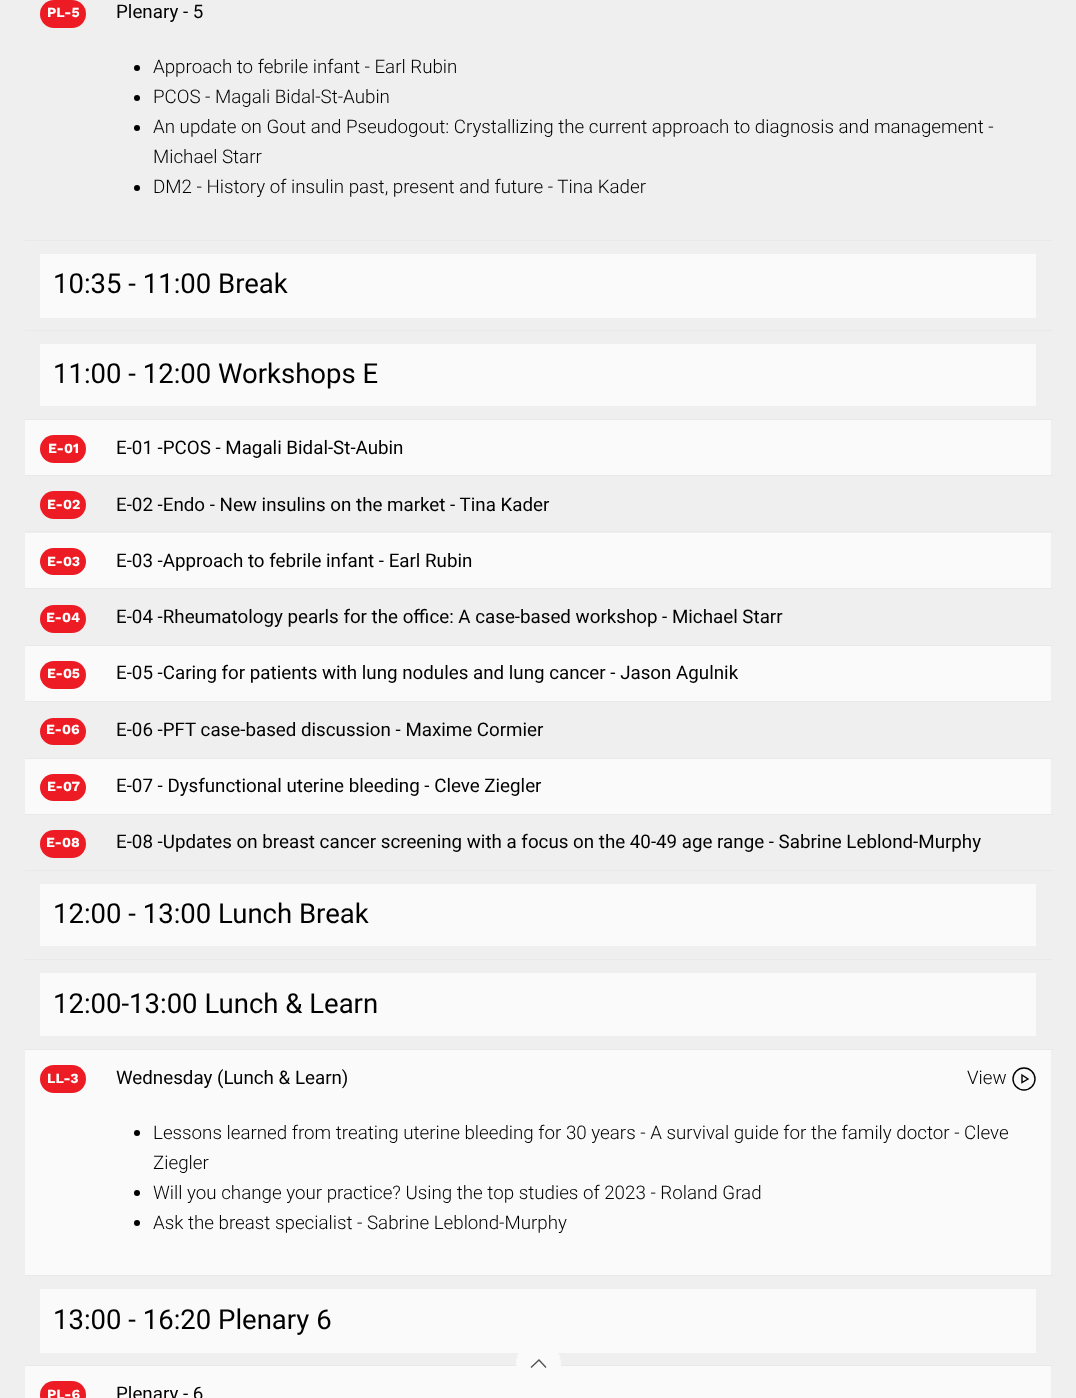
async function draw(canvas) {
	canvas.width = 1076;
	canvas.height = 1398;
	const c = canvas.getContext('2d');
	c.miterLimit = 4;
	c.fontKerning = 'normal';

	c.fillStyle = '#efefef';
	c.fillRect(0, 0, 1076, 1398);
	c.fillStyle = '#ed1c24';
	c.beginPath();
	c.roundRect(40, 0, 46, 28, 14);
	c.fill();
	c.font = 'bold 14px Work Sans';
	c.fillStyle = '#fff';
	c.fillText('PL-5', 47, 17);
	c.fillStyle = '#e9e9e9';
	c.fillRect(25, 240, 1028, 1);
	c.font = '18.75px Roboto';
	c.fillStyle = '#000';
	c.fillText('Plenary - 5', 116, 18);
	c.beginPath();
	c.arc(137, 68, 3, 0, 2 * Math.PI);
	c.fill();
	c.font = '300 18.75px Roboto';
	c.fillText('Approach to febrile infant - Earl Rubin', 153, 73);
	c.beginPath();
	c.arc(137, 98, 3, 0, 2 * Math.PI);
	c.fill();
	c.fillText('PCOS - Magali Bidal-St-Aubin', 153, 103);
	c.beginPath();
	c.arc(137, 128, 3, 0, 2 * Math.PI);
	c.fill();
	c.fillText('An update on Gout and Pseudogout: Crystallizing the current approach to diagnosis and management -', 153, 133);
	c.fillText('Michael Starr', 153, 163);
	c.beginPath();
	c.arc(137, 188, 3, 0, 2 * Math.PI);
	c.fill();
	c.fillText('DM2 - History of insulin past, present and future - Tina Kader', 153, 193);
	c.fillStyle = '#e9e9e9';
	c.fillRect(25, 330, 1028, 1);
	c.fillStyle = '#fafafa';
	c.fillRect(40, 254, 996, 64);
	c.font = '27.5px Roboto';
	c.fillStyle = '#000';
	c.fillText('10:35 - 11:00 Break', 53, 293);
	c.fillStyle = '#e9e9e9';
	c.fillRect(25, 419, 1028, 1);
	c.fillStyle = '#fafafa';
	c.fillRect(40, 344, 996, 62);
	c.fillStyle = '#000';
	c.fillText('11:00 - 12:00 Workshops E', 53, 383);
	c.fillStyle = '#fafafa';
	c.fillRect(25, 420, 1026, 55);
	c.fillStyle = '#ed1c24';
	c.beginPath();
	c.roundRect(40, 435, 46, 28, 14);
	c.fill();
	c.font = 'bold 14px Work Sans';
	c.fillStyle = '#fff';
	c.fillText('E-01', 48, 453);
	c.fillStyle = '#e9e9e9';
	c.fillRect(25, 475, 1028, 1);
	c.font = '18.75px Roboto';
	c.fillStyle = '#000';
	c.fillText('E-01 -PCOS - Magali Bidal-St-Aubin', 116, 454);
	c.fillStyle = '#ed1c24';
	c.beginPath();
	c.roundRect(40, 491, 46, 28, 14);
	c.fill();
	c.font = 'bold 14px Work Sans';
	c.fillStyle = '#fff';
	c.fillText('E-02', 47, 509);
	c.fillStyle = '#e9e9e9';
	c.fillRect(25, 531, 1028, 1);
	c.font = '18.75px Roboto';
	c.fillStyle = '#000';
	c.fillText('E-02 -Endo - New insulins on the market - Tina Kader', 116, 511);
	c.fillStyle = '#fafafa';
	c.fillRect(25, 533, 1026, 55);
	c.fillStyle = '#ed1c24';
	c.beginPath();
	c.roundRect(40, 548, 46, 27, 13.5);
	c.fill();
	c.font = 'bold 14px Work Sans';
	c.fillStyle = '#fff';
	c.fillText('E-03', 47, 566);
	c.fillStyle = '#e9e9e9';
	c.fillRect(25, 588, 1028, 1);
	c.font = '18.75px Roboto';
	c.fillStyle = '#000';
	c.fillText('E-03 -Approach to febrile infant - Earl Rubin', 116, 567);
	c.fillStyle = '#ed1c24';
	c.beginPath();
	c.roundRect(40, 605, 46, 28, 14);
	c.fill();
	c.font = 'bold 14px Work Sans';
	c.fillStyle = '#fff';
	c.fillText('E-04', 46, 622);
	c.fillStyle = '#e9e9e9';
	c.fillRect(25, 645, 1028, 1);
	c.font = '18.75px Roboto';
	c.fillStyle = '#000';
	c.fillText('E-04 -Rheumatology pearls for the office: A case-based workshop - Michael Starr', 116, 623);
	c.fillStyle = '#fafafa';
	c.fillRect(25, 646, 1026, 55);
	c.fillStyle = '#ed1c24';
	c.beginPath();
	c.roundRect(40, 661, 46, 28, 14);
	c.fill();
	c.font = 'bold 14px Work Sans';
	c.fillStyle = '#fff';
	c.fillText('E-05', 47, 678);
	c.fillStyle = '#e9e9e9';
	c.fillRect(25, 701, 1028, 1);
	c.font = '18.75px Roboto';
	c.fillStyle = '#000';
	c.fillText('E-05 -Caring for patients with lung nodules and lung cancer - Jason Agulnik', 116, 679);
	c.fillStyle = '#ed1c24';
	c.beginPath();
	c.roundRect(40, 718, 46, 27, 13.5);
	c.fill();
	c.font = 'bold 14px Work Sans';
	c.fillStyle = '#fff';
	c.fillText('E-06', 46, 734);
	c.fillStyle = '#e9e9e9';
	c.fillRect(25, 758, 1028, 1);
	c.font = '18.75px Roboto';
	c.fillStyle = '#000';
	c.fillText('E-06 -PFT case-based discussion - Maxime Cormier', 116, 736);
	c.fillStyle = '#fafafa';
	c.fillRect(25, 759, 1026, 55);
	c.fillStyle = '#ed1c24';
	c.beginPath();
	c.roundRect(40, 774, 46, 27, 13.5);
	c.fill();
	c.font = 'bold 14px Work Sans';
	c.fillStyle = '#fff';
	c.fillText('E-07', 47, 791);
	c.fillStyle = '#e9e9e9';
	c.fillRect(25, 814, 1028, 1);
	c.font = '18.75px Roboto';
	c.fillStyle = '#000';
	c.fillText('E-07 - Dysfunctional uterine bleeding - Cleve Ziegler', 116, 792);
	c.fillStyle = '#ed1c24';
	c.beginPath();
	c.roundRect(40, 830, 46, 28, 14);
	c.fill();
	c.font = 'bold 14px Work Sans';
	c.fillStyle = '#fff';
	c.fillText('E-08', 46, 847);
	c.fillStyle = '#e9e9e9';
	c.fillRect(25, 870, 1028, 1);
	c.font = '18.75px Roboto';
	c.fillStyle = '#000';
	c.fillText('E-08 -Updates on breast cancer screening with a focus on the 40-49 age range - Sabrine Leblond-Murphy', 116, 848);
	c.fillStyle = '#e9e9e9';
	c.fillRect(25, 959, 1028, 1);
	c.fillStyle = '#fafafa';
	c.fillRect(40, 884, 996, 62);
	c.font = '27.5px Roboto';
	c.fillStyle = '#000';
	c.fillText('12:00 - 13:00 Lunch Break', 53, 923);
	c.fillStyle = '#e9e9e9';
	c.fillRect(25, 1049, 1028, 1);
	c.fillStyle = '#fafafa';
	c.fillRect(40, 973, 996, 63);
	c.fillStyle = '#000';
	c.fillText('12:00-13:00 Lunch & Learn', 53, 1013);
	c.fillStyle = '#fafafa';
	c.fillRect(25, 1050, 1026, 225);
	c.fillStyle = '#ed1c24';
	c.beginPath();
	c.roundRect(40, 1065, 46, 28, 14);
	c.fill();
	c.font = 'bold 14px Work Sans';
	c.fillStyle = '#fff';
	c.fillText('LL-3', 47, 1083);
	c.fillStyle = '#e9e9e9';
	c.fillRect(25, 1275, 1028, 1);
	c.font = '18.75px Roboto';
	c.fillStyle = '#000';
	c.fillText('Wednesday (Lunch & Learn)', 116, 1084);
	c.font = '300 18.75px Roboto';
	c.fillText('View', 967, 1084);
	c.beginPath();
	c.moveTo(1022, 1075);
	c.lineTo(1028, 1079);
	c.lineTo(1022, 1082.5);
	c.closePath();
	c.strokeStyle = '#000';
	c.lineWidth = 1.4;
	c.stroke();
	c.beginPath();
	c.arc(1024, 1079, 11, 0, 2 * Math.PI);
	c.stroke();
	c.beginPath();
	c.arc(137, 1133, 3, 0, 2 * Math.PI);
	c.fill();
	c.fillText('Lessons learned from treating uterine bleeding for 30 years - A survival guide for the family doctor - Cleve', 153, 1139);
	c.fillText('Ziegler', 153, 1169);
	c.beginPath();
	c.arc(137, 1193, 3, 0, 2 * Math.PI);
	c.fill();
	c.fillText('Will you change your practice? Using the top studies of 2023 - Roland Grad', 153, 1199);
	c.beginPath();
	c.arc(137, 1223, 3, 0, 2 * Math.PI);
	c.fill();
	c.fillText('Ask the breast specialist - Sabrine Leblond-Murphy', 153, 1229);
	c.fillStyle = '#e9e9e9';
	c.fillRect(25, 1365, 1028, 1);
	c.fillStyle = '#fafafa';
	c.fillRect(40, 1289, 996, 64);
	c.font = '27.5px Roboto';
	c.fillStyle = '#000';
	c.fillText('13:00 - 16:20 Plenary 6', 53, 1329);
	c.fillStyle = '#fafafa';
	c.fillRect(25, 1366, 1026, 32);
	c.fillStyle = '#ed1c24';
	c.beginPath();
	c.roundRect(40, 1381, 46, 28, 14);
	c.fill();
	c.font = 'bold 14px Work Sans';
	c.fillStyle = '#fff';
	c.fillText('PL-6', 47, 1399);
	c.font = '18.75px Roboto';
	c.fillStyle = '#000';
	c.fillText('Plenary - 6', 116, 1400);
	c.fillStyle = '#fafafa';
	c.beginPath();
	c.arc(538.5, 1363.5, 22.5, 0, 2 * Math.PI);
	c.fill();
	c.beginPath();
	c.moveTo(531, 1367.5);
	c.lineTo(539, 1360);
	c.lineTo(546, 1367.5);
	c.strokeStyle = '#4e4e4e';
	c.lineWidth = 1.3;
	c.stroke();
}

draw(document.querySelector('canvas'));
